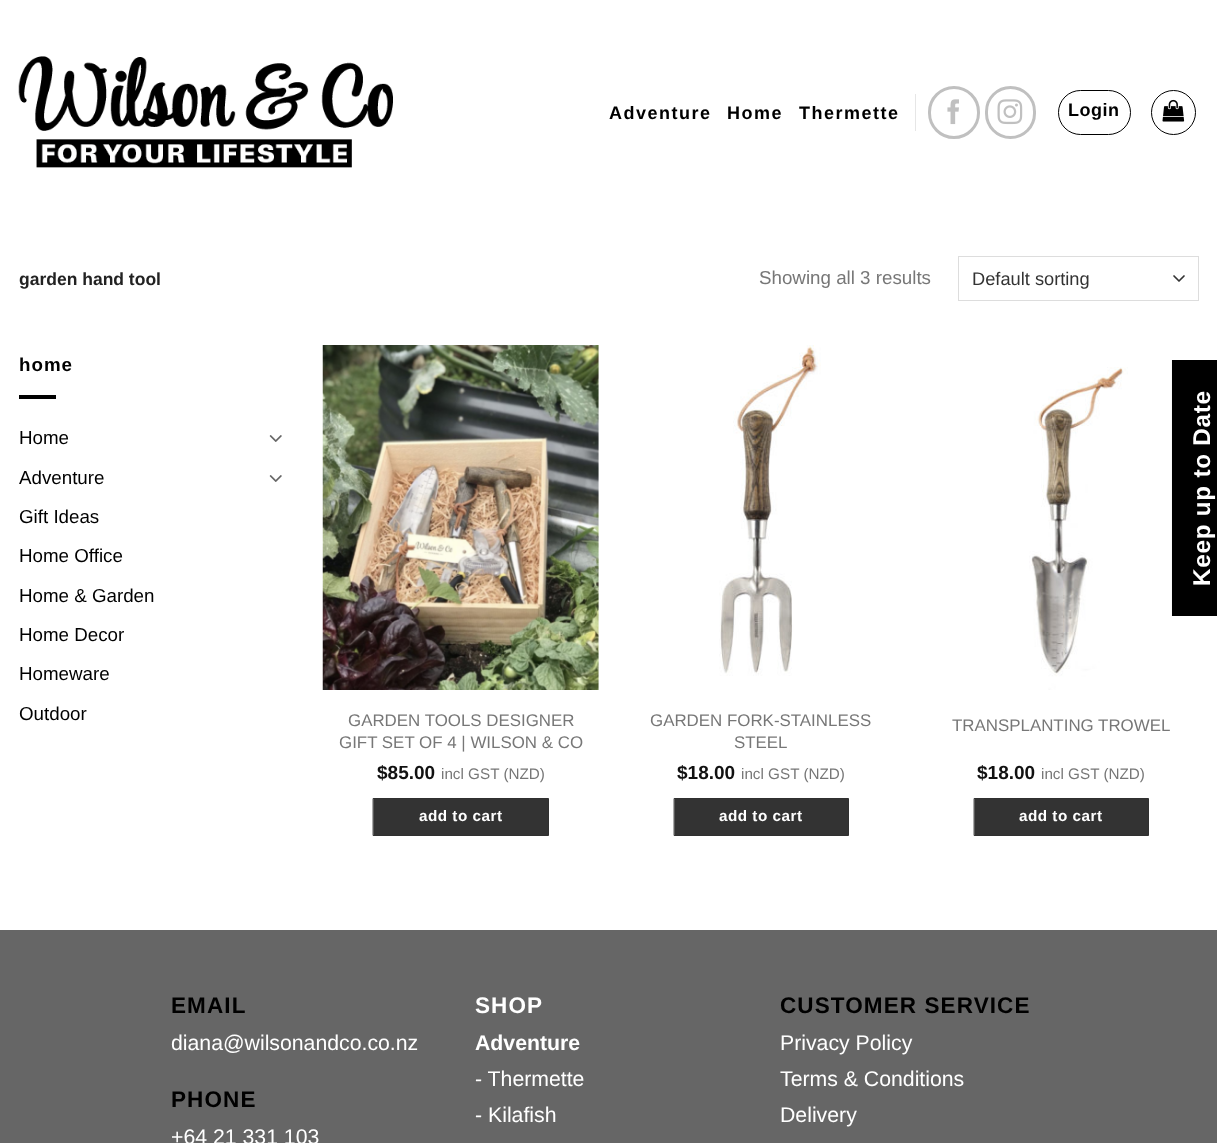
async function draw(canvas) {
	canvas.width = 1217;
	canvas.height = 1143;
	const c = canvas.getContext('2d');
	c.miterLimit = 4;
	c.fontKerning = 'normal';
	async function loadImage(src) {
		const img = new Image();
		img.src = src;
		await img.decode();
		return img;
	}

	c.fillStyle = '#fff';
	c.fillRect(0, 0, 1217, 1143);
	c.drawImage(await loadImage('img1.png'), 18, 56, 375, 112);
	c.letterSpacing = '1.5px';
	c.font = 'bold 18px Liberation Sans';
	c.fillStyle = '#000';
	for (const [text, x, y] of [
		['Adventure', 609, 119],
		['Home', 727, 119],
		['Thermette', 799, 119],
	]) {
		c.fillText(text, x, y);
	}
	c.fillStyle = '#e6e6e6';
	c.fillRect(915, 94, 1, 37);
	c.beginPath();
	c.roundRect(929.5, 87.5, 49, 50, 24.5);
	c.strokeStyle = '#c0c0c0';
	c.lineWidth = 3;
	c.stroke();
	c.drawImage(await loadImage('img2.png'), 947, 99, 12, 26);
	c.beginPath();
	c.roundRect(986.5, 87.5, 48, 50, 24);
	c.stroke();
	c.drawImage(await loadImage('img3.png'), 997, 99, 26, 26);
	c.beginPath();
	c.roundRect(1058.5, 90.5, 72, 44, 22);
	c.strokeStyle = '#000';
	c.lineWidth = 1;
	c.stroke();
	c.letterSpacing = '0.5px';
	c.fillStyle = '#000';
	c.fillText('Login', 1068, 116);
	c.beginPath();
	c.arc(1173.5, 112.5, 22, 0, 2 * Math.PI);
	c.stroke();
	c.drawImage(await loadImage('img4.png'), 1162, 99, 23, 23);
	c.letterSpacing = '0px';
	c.font = 'bold 17.5px Liberation Sans';
	c.fillStyle = '#222';
	c.fillText('garden hand tool', 19, 285);
	c.font = '18.75px Liberation Sans';
	c.fillStyle = '#777';
	c.fillText('Showing all 3 results', 759, 284);
	c.beginPath();
	c.moveTo(1174, 276);
	c.lineTo(1179, 281);
	c.lineTo(1184, 276);
	c.strokeStyle = '#333';
	c.lineWidth = 1.7;
	c.lineCap = 'round';
	c.lineJoin = 'round';
	c.stroke();
	c.strokeStyle = '#ddd';
	c.lineWidth = 1;
	c.lineJoin = 'miter';
	c.strokeRect(958.5, 256.5, 240, 44);
	c.font = '18.25px Liberation Sans';
	c.fillStyle = '#333';
	c.fillText('Default sorting', 972, 285);
	c.letterSpacing = '1px';
	c.font = 'bold 18.75px Liberation Sans';
	c.fillStyle = '#000';
	c.fillText('home', 19, 371);
	c.fillRect(19, 395, 37, 4);
	c.letterSpacing = '0px';
	c.font = '18.75px Liberation Sans';
	c.fillText('Home', 19, 444);
	c.drawImage(await loadImage('img5.png'), 269, 435, 13, 7);
	c.fillText('Adventure', 19, 484);
	c.drawImage(await loadImage('img5.png'), 269, 475, 13, 7);
	for (const [text, x, y] of [
		['Gift Ideas', 19, 523],
		['Home Office', 19, 562],
		['Home & Garden', 19, 602],
		['Home Decor', 19, 641],
		['Homeware', 19, 680],
		['Outdoor', 19, 720],
	]) {
		c.fillText(text, x, y);
	}
	c.drawImage(await loadImage('img6.png'), 322, 345, 277, 345);
	c.font = '16.9px Liberation Sans';
	c.fillStyle = '#777';
	c.fillText('GARDEN TOOLS DESIGNER', 348, 726);
	c.fillText('GIFT SET OF 4 | WILSON & CO', 339, 748);
	c.font = 'bold 19px Liberation Sans';
	c.fillStyle = '#111';
	c.fillText('$85.00', 377, 779);
	c.font = '15.25px Liberation Sans';
	c.fillStyle = '#777';
	c.fillText('incl GST (NZD)', 441, 779);
	c.fillStyle = '#333';
	c.beginPath();
	c.rect(373.5, 798.5, 175, 37);
	c.fill();
	c.strokeStyle = '#303030';
	c.stroke();
	c.letterSpacing = '0.5px';
	c.font = 'bold 15.25px Liberation Sans';
	c.fillStyle = '#fff';
	c.fillText('add to cart', 419, 821);
	c.drawImage(await loadImage('img7.png'), 719, 345, 102, 331);
	c.letterSpacing = '0px';
	c.font = '16.9px Liberation Sans';
	c.fillStyle = '#777';
	c.fillText('GARDEN FORK-STAINLESS', 650, 726);
	c.fillText('STEEL', 734, 748);
	c.font = 'bold 19px Liberation Sans';
	c.fillStyle = '#111';
	c.fillText('$18.00', 677, 779);
	c.font = '15.25px Liberation Sans';
	c.fillStyle = '#777';
	c.fillText('incl GST (NZD)', 741, 779);
	c.fillStyle = '#333';
	c.beginPath();
	c.rect(674.5, 798.5, 174, 37);
	c.fill();
	c.stroke();
	c.letterSpacing = '0.5px';
	c.font = 'bold 15.25px Liberation Sans';
	c.fillStyle = '#fff';
	c.fillText('add to cart', 719, 821);
	c.drawImage(await loadImage('img8.png'), 1029, 367, 99, 323);
	c.letterSpacing = '0px';
	c.font = '16.9px Liberation Sans';
	c.fillStyle = '#777';
	c.fillText('TRANSPLANTING TROWEL', 952, 731);
	c.font = 'bold 19px Liberation Sans';
	c.fillStyle = '#111';
	c.fillText('$18.00', 977, 779);
	c.font = '15.25px Liberation Sans';
	c.fillStyle = '#777';
	c.fillText('incl GST (NZD)', 1041, 779);
	c.fillStyle = '#333';
	c.beginPath();
	c.rect(974.5, 798.5, 174, 37);
	c.fill();
	c.stroke();
	c.letterSpacing = '0.5px';
	c.font = 'bold 15.25px Liberation Sans';
	c.fillStyle = '#fff';
	c.fillText('add to cart', 1019, 821);
	c.fillStyle = '#666';
	c.fillRect(0, 930, 1217, 213);
	c.letterSpacing = '1.1px';
	c.font = 'bold 22.5px Liberation Sans';
	c.fillStyle = '#000';
	c.fillText('EMAIL', 171, 1013);
	c.letterSpacing = '0px';
	c.font = '21.25px Liberation Sans';
	c.fillStyle = '#fff';
	c.fillText('diana@wilsonandco.co.nz', 171, 1050);
	c.letterSpacing = '1.1px';
	c.font = 'bold 22.5px Liberation Sans';
	c.fillStyle = '#000';
	c.fillText('PHONE', 171, 1107);
	c.letterSpacing = '0px';
	c.font = '21.25px Liberation Sans';
	c.fillStyle = '#fff';
	c.fillText('+64 21 331 103', 171, 1144);
	c.letterSpacing = '1.1px';
	c.font = 'bold 22.5px Liberation Sans';
	c.fillText('SHOP', 475, 1013);
	c.letterSpacing = '0px';
	c.font = 'bold 21.25px Liberation Sans';
	c.fillText('Adventure', 475, 1050);
	c.font = '21.25px Liberation Sans';
	c.fillText('- Thermette', 475, 1086);
	c.fillText('- Kilafish', 475, 1122);
	c.letterSpacing = '1.1px';
	c.font = 'bold 22.5px Liberation Sans';
	c.fillStyle = '#000';
	c.fillText('CUSTOMER SERVICE', 780, 1013);
	c.letterSpacing = '0px';
	c.font = '21.25px Liberation Sans';
	c.fillStyle = '#fff';
	for (const [text, x, y] of [
		['Privacy Policy', 780, 1050],
		['Terms & Conditions', 780, 1086],
		['Delivery', 780, 1122],
	]) {
		c.fillText(text, x, y);
	}
	c.fillStyle = '#000';
	c.fillRect(1172, 360, 45, 256);
	c.beginPath();
	c.moveTo(1172, 615.5);
	c.lineTo(1172, 360.5);
	c.lineTo(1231.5, 360.5);
	c.lineTo(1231.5, 615.5);
	c.closePath();
	c.strokeStyle = '#0000000d';
	c.lineWidth = 1.2;
	c.lineCap = 'butt';
	c.stroke();
	c.letterSpacing = '0.75px';
	c.font = 'bold 24.25px Liberation Sans';
	c.fillStyle = '#fff';
	c.save();
	c.translate(1210, 586);
	c.rotate(-90 * Math.PI / 180);
	c.fillText('Keep up to Date', 0, 0);
	c.restore();
}

draw(document.querySelector('canvas'));
